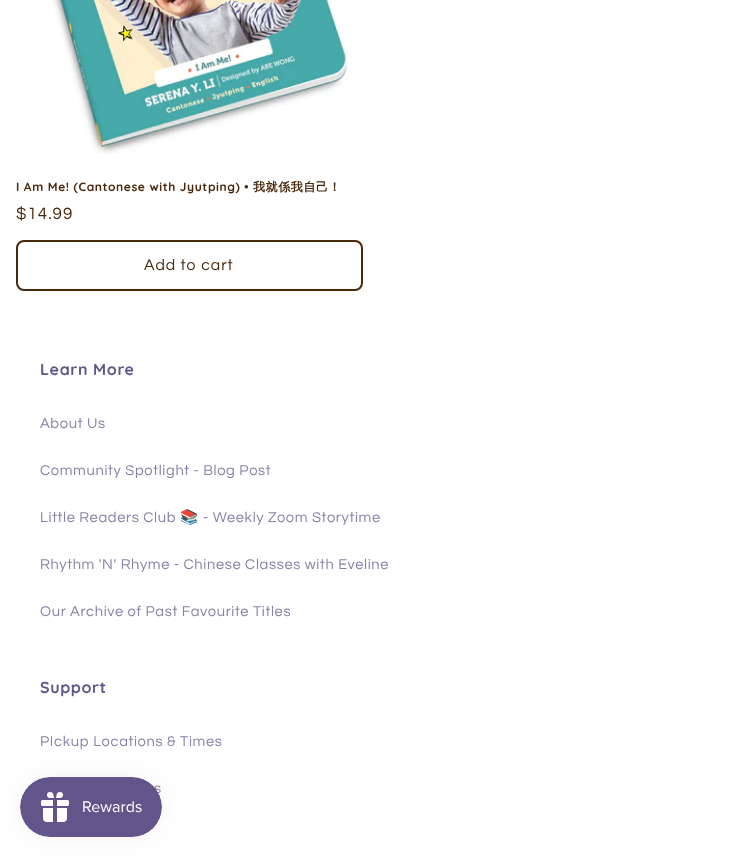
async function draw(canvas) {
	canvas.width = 729;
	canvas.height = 857;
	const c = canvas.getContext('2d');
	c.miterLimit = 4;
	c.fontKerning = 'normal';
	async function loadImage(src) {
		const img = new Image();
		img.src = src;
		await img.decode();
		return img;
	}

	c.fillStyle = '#fff';
	c.fillRect(0, 0, 729, 857);
	c.drawImage(await loadImage('img1.png'), 52, 0, 296, 154);
	c.letterSpacing = '0.6px';
	c.font = 'bold 12px Quicksand';
	c.fillStyle = '#4a280c';
	c.fillText('I Am Me! (Cantonese with Jyutping) •', 16, 191);
	c.font = 'bold 12px WenQuanYi Zen Hei';
	c.fillText('我就係我自己！', 253, 191);
	c.letterSpacing = '1px';
	c.font = '17px Questrial';
	c.fillText('$14.99', 16, 219);
	c.beginPath();
	c.roundRect(17, 241, 345, 49, 7);
	c.strokeStyle = '#4a280c';
	c.lineWidth = 2;
	c.stroke();
	c.font = '15.75px Questrial';
	c.fillText('Add to cart', 144, 270);
	c.letterSpacing = '0.6px';
	c.font = 'bold 16px Quicksand';
	c.fillStyle = '#62558a';
	c.fillText('Learn More', 40, 375);
	c.letterSpacing = '0.65px';
	c.font = '14.7px Questrial';
	c.fillStyle = '#8980a7';
	for (const [text, x, y] of [
		['About Us', 40, 428],
		['Community Spotlight - Blog Post', 40, 475],
		['Little Readers Club', 40, 522],
	]) {
		c.fillText(text, x, y);
	}
	c.font = '14.7px Noto Color Emoji';
	c.fillText('📚', 180, 522);
	c.font = '14.7px Questrial';
	for (const [text, x, y] of [
		['- Weekly Zoom Storytime', 203, 522],
		['Rhythm \'N\' Rhyme - Chinese Classes with Eveline', 40, 569],
		['Our Archive of Past Favourite Titles', 40, 616],
	]) {
		c.fillText(text, x, y);
	}
	c.letterSpacing = '0.6px';
	c.font = 'bold 16px Quicksand';
	c.fillStyle = '#62558a';
	c.fillText('Support', 40, 693);
	c.letterSpacing = '0.65px';
	c.font = '14.7px Questrial';
	c.fillStyle = '#8980a7';
	c.fillText('PIckup Locations & Times', 40, 746);
	c.fillText('s', 154, 793);
	c.fillStyle = '#0000000d';
	c.filter = 'blur(12.5px)';
	c.beginPath();
	c.roundRect(20, 777, 142, 60, 30);
	c.fill();
	c.filter = 'none';
	c.drawImage(await loadImage('img2.png'), 20, 777, 142, 60);
}

draw(document.querySelector('canvas'));
